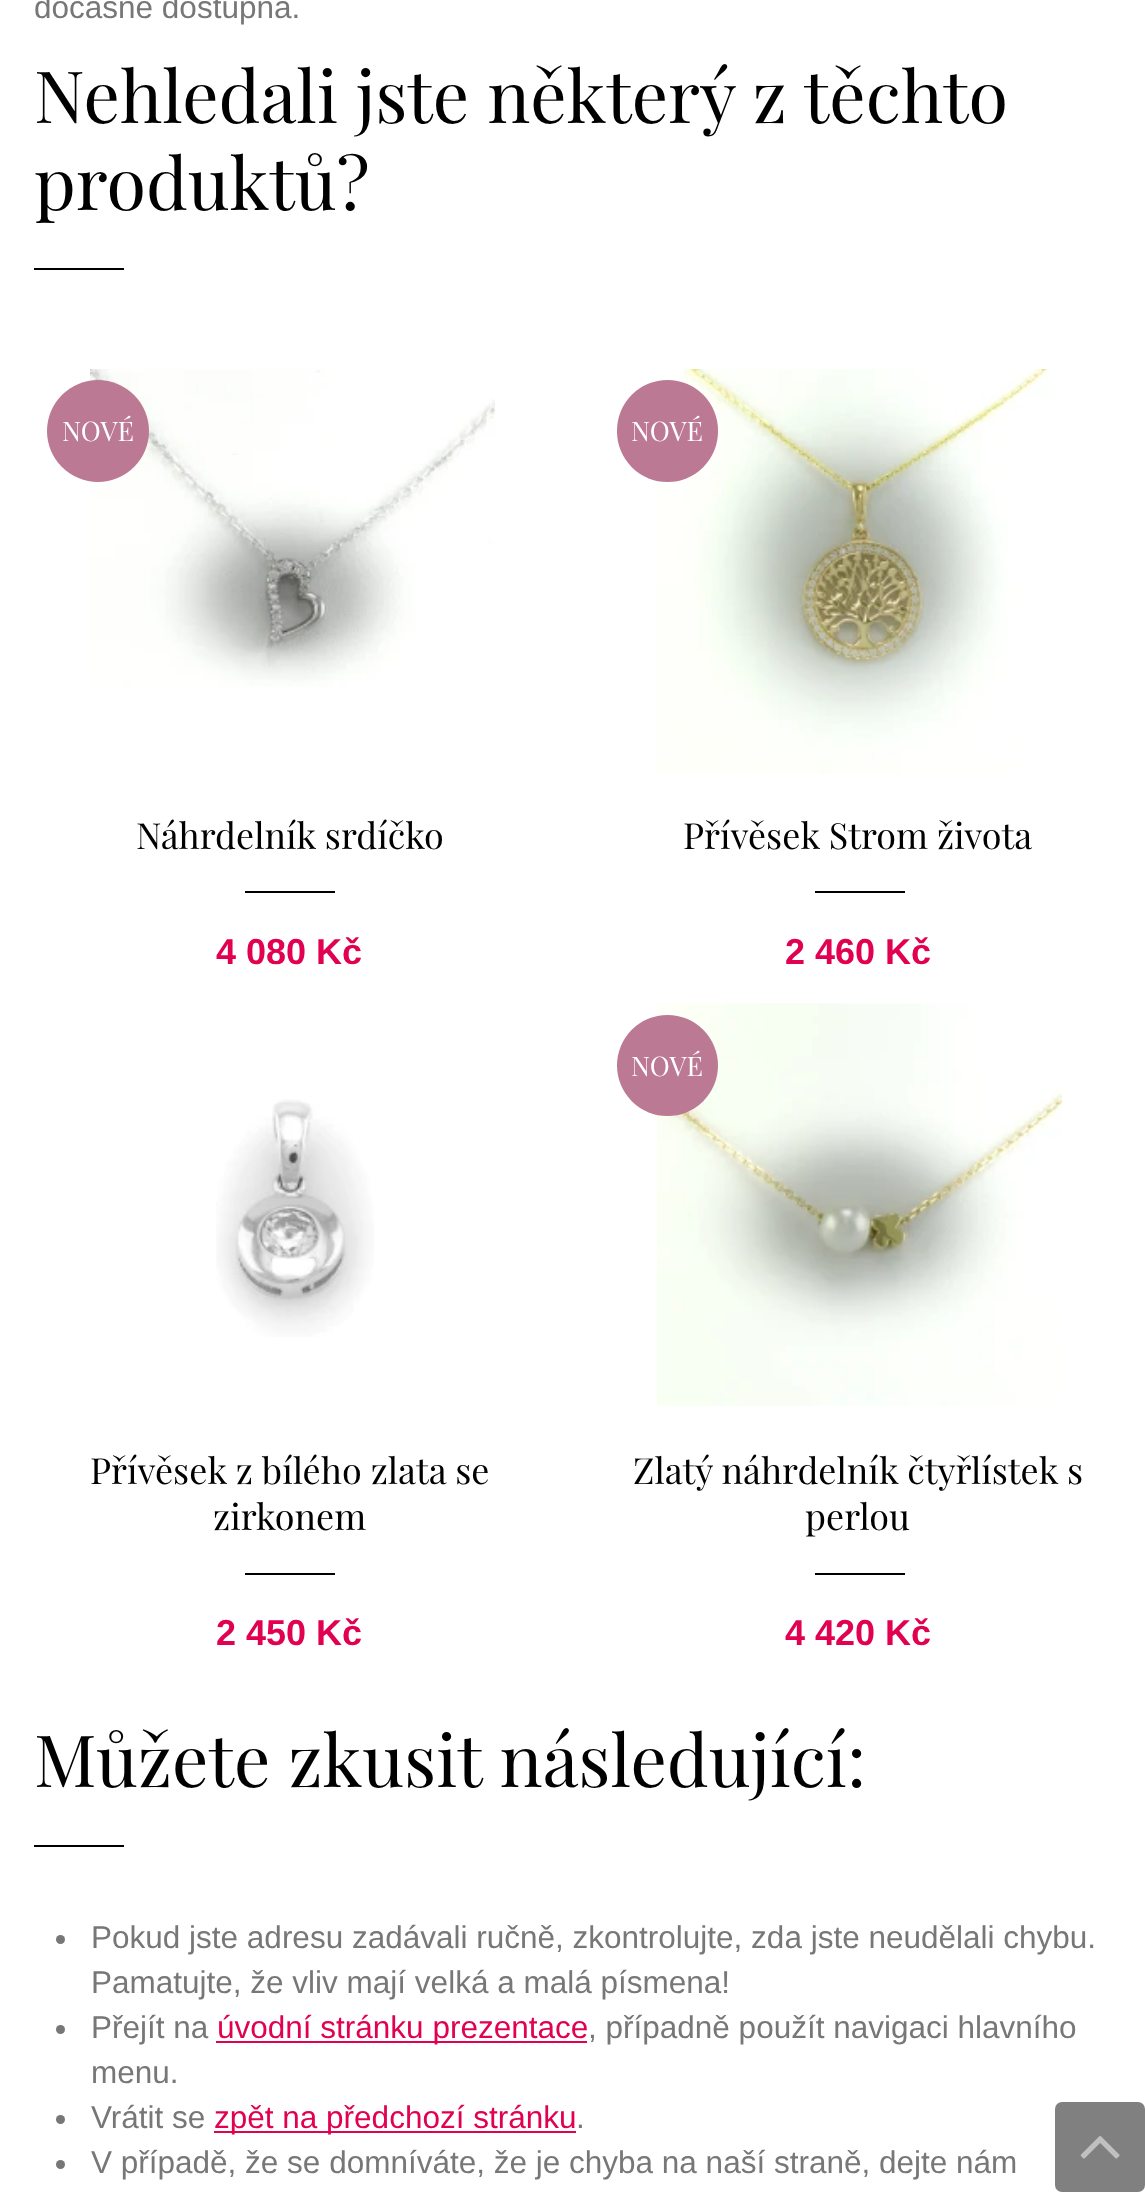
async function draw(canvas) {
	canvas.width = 1145;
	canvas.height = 2207;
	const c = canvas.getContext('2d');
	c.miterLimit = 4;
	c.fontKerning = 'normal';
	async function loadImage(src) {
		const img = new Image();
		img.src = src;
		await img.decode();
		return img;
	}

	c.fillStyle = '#fff';
	c.fillRect(0, 0, 1145, 2207);
	c.font = '31.5px Liberation Sans';
	c.fillStyle = '#777';
	c.fillText('dočasně dostupná.', 34, 18);
	c.fillStyle = '#000';
	c.fillRect(34, 268, 90, 2);
	c.font = '72px Playfair Display';
	c.fillText('Nehledali jste některý z těchto', 34, 123);
	c.fillText('produktů?', 34, 210);
	c.drawImage(await loadImage('img1.png'), 90, 369, 405, 318);
	c.fillStyle = '#bc7993';
	c.beginPath();
	c.arc(98, 431, 51, 0, 2 * Math.PI);
	c.fill();
	c.font = '27px Playfair Display';
	c.fillStyle = '#fff';
	c.fillText('NOVÉ', 62, 441);
	c.font = '36px Playfair Display';
	c.fillStyle = '#000';
	c.fillText('Náhrdelník srdíčko', 136, 849);
	c.fillRect(245, 891, 90, 2);
	c.font = 'bold 36px Liberation Sans';
	c.fillStyle = '#e10150';
	c.fillText('4 080 Kč', 216, 964);
	c.drawImage(await loadImage('img2.png'), 657, 369, 392, 405);
	c.fillStyle = '#bc7993';
	c.beginPath();
	c.roundRect(617, 380, 101, 102, 50.5);
	c.fill();
	c.font = '27px Playfair Display';
	c.fillStyle = '#fff';
	c.fillText('NOVÉ', 631, 441);
	c.font = '36px Playfair Display';
	c.fillStyle = '#000';
	c.fillText('Přívěsek Strom života', 683, 849);
	c.fillRect(815, 891, 90, 2);
	c.font = 'bold 36px Liberation Sans';
	c.fillStyle = '#e10150';
	c.fillText('2 460 Kč', 785, 964);
	c.drawImage(await loadImage('img3.png'), 216, 1099, 158, 238);
	c.font = '36px Playfair Display';
	c.fillStyle = '#000';
	c.fillText('Přívěsek z bílého zlata se', 90, 1484);
	c.fillText('zirkonem', 213, 1530);
	c.fillRect(245, 1573, 90, 2);
	c.font = 'bold 36px Liberation Sans';
	c.fillStyle = '#e10150';
	c.fillText('2 450 Kč', 216, 1645);
	c.drawImage(await loadImage('img4.png'), 657, 1003, 405, 403);
	c.fillStyle = '#bc7993';
	c.beginPath();
	c.arc(667.5, 1065.5, 50.5, 0, 2 * Math.PI);
	c.fill();
	c.font = '27px Playfair Display';
	c.fillStyle = '#fff';
	c.fillText('NOVÉ', 631, 1076);
	c.font = '36px Playfair Display';
	c.fillStyle = '#000';
	c.fillText('Zlatý náhrdelník čtyřlístek s', 633, 1484);
	c.fillText('perlou', 805, 1530);
	c.fillRect(815, 1573, 90, 2);
	c.font = 'bold 36px Liberation Sans';
	c.fillStyle = '#e10150';
	c.fillText('4 420 Kč', 785, 1645);
	c.fillStyle = '#000';
	c.fillRect(34, 1845, 90, 2);
	c.font = '72px Playfair Display';
	c.fillText('Můžete zkusit následující:', 34, 1787);
	c.fillStyle = '#777';
	c.beginPath();
	c.arc(60.5, 1939.5, 4.5, 0, 2 * Math.PI);
	c.fill();
	c.font = '31.5px Liberation Sans';
	c.fillText('Pokud jste adresu zadávali ručně, zkontrolujte, zda jste neudělali chybu.', 91, 1948);
	c.fillText('Pamatujte, že vliv mají velká a malá písmena!', 91, 1993);
	c.beginPath();
	c.arc(60.5, 2029.5, 4.5, 0, 2 * Math.PI);
	c.fill();
	c.fillText('Přejít na', 91, 2038);
	c.fillStyle = '#e10150';
	c.fillRect(216, 2041, 371, 2);
	c.fillText('úvodní stránku prezentace', 217, 2038);
	c.fillStyle = '#777';
	c.fillText(', případně použít navigaci hlavního', 588, 2038);
	c.fillText('menu.', 91, 2083);
	c.beginPath();
	c.arc(60.5, 2119.5, 4.5, 0, 2 * Math.PI);
	c.fill();
	c.fillText('Vrátit se', 91, 2128);
	c.fillStyle = '#e10150';
	c.fillRect(214, 2131, 362, 2);
	c.fillText('zpět na předchozí stránku', 214, 2128);
	c.fillStyle = '#777';
	c.fillText('.', 576, 2128);
	c.beginPath();
	c.arc(60.5, 2164.5, 4.5, 0, 2 * Math.PI);
	c.fill();
	c.fillText('V případě, že se domníváte, že je chyba na naší straně, dejte nám', 91, 2173);
	c.fillStyle = '#808080';
	c.beginPath();
	c.roundRect(1055, 2102, 90, 90, 7);
	c.fill();
	c.drawImage(await loadImage('img5.png'), 1080, 2136, 40, 23);
}

draw(document.querySelector('canvas'));
